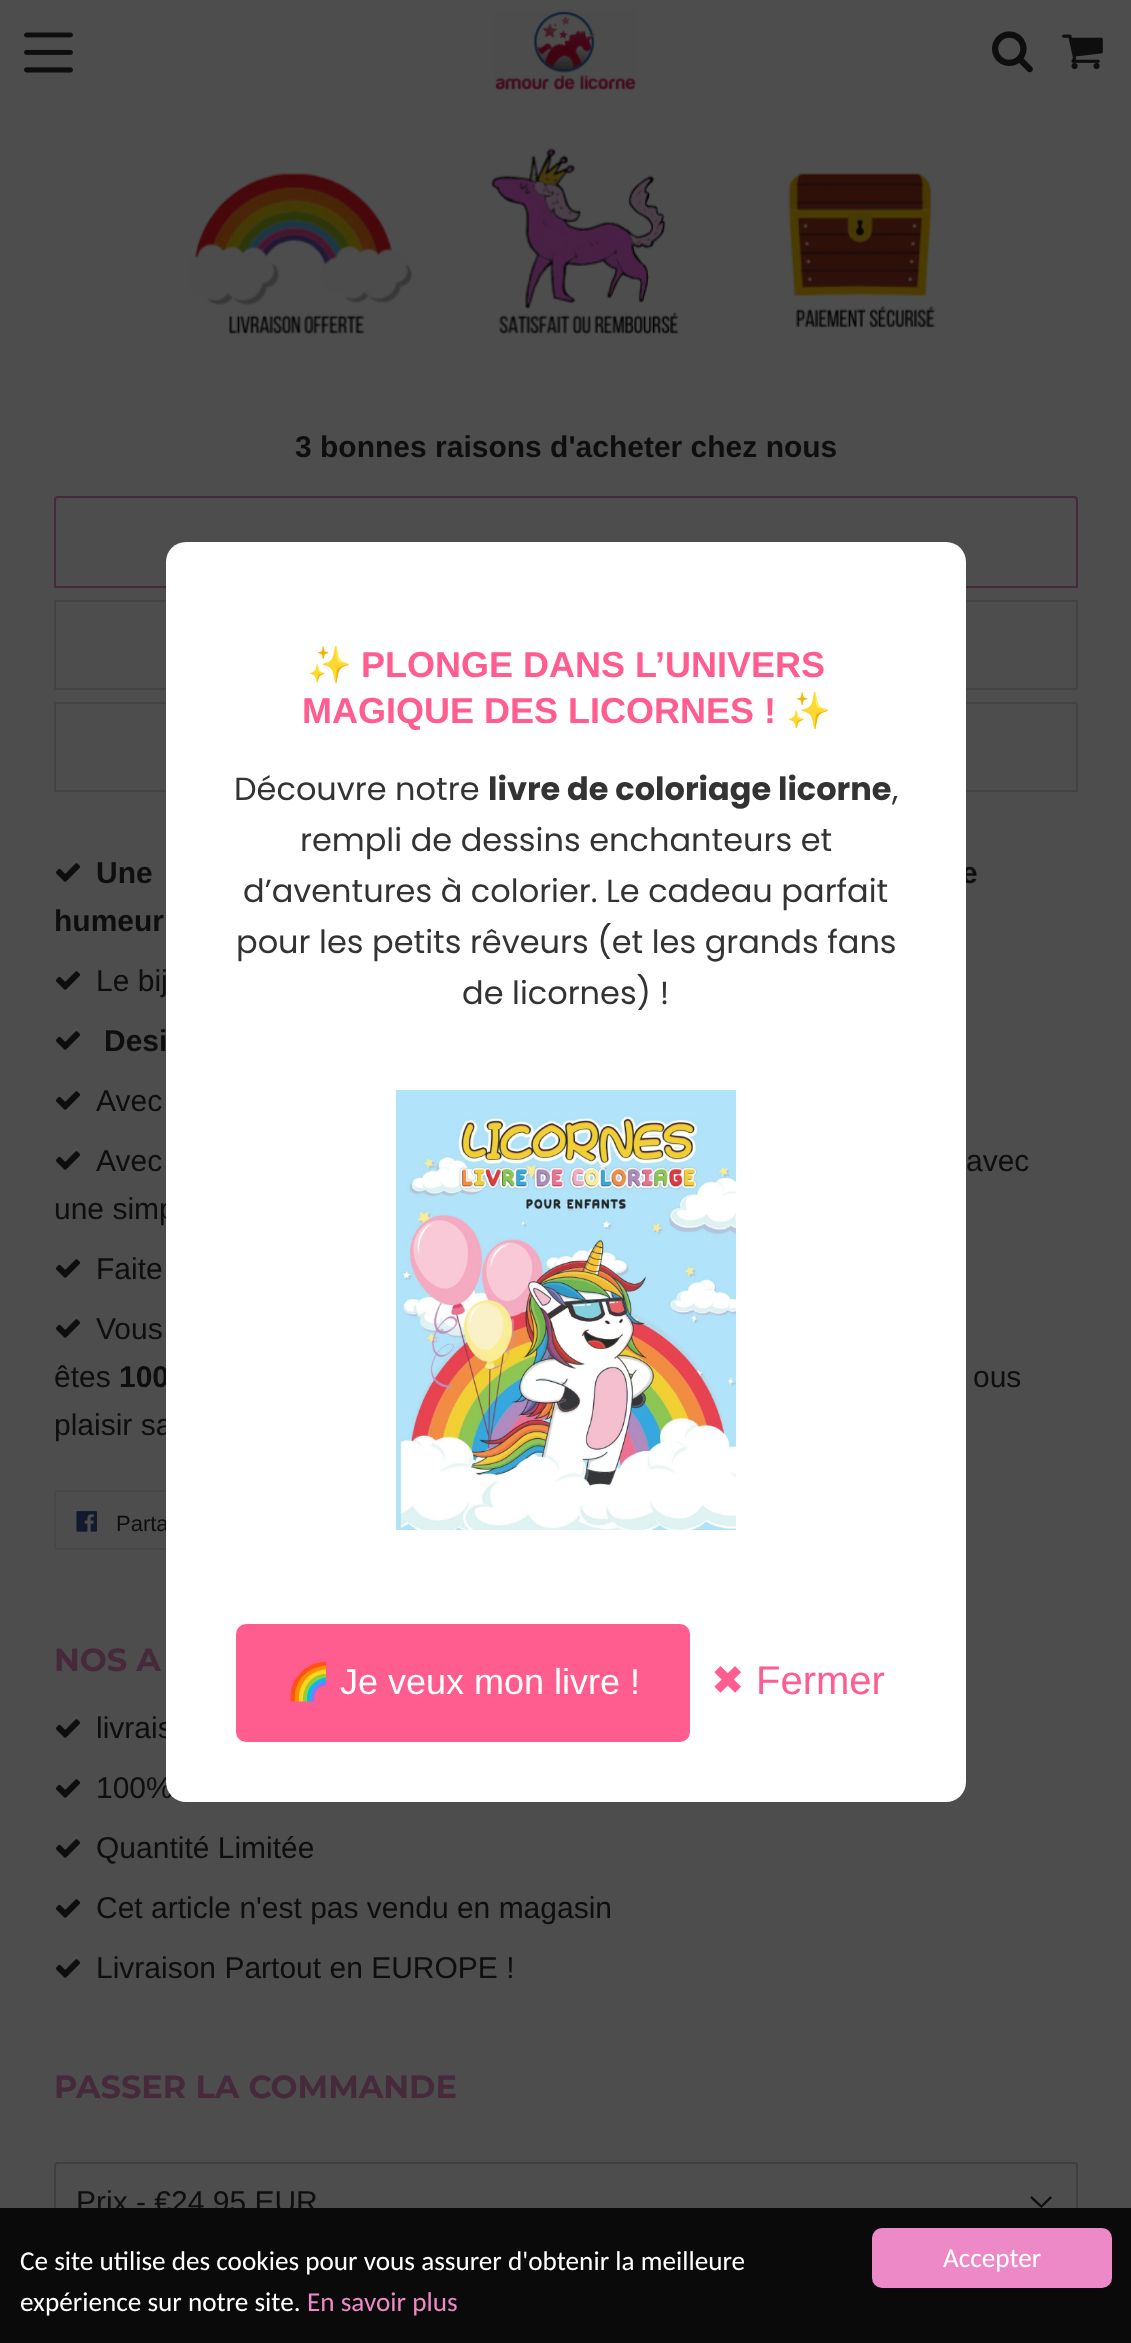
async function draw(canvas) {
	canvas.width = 1131;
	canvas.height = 2343;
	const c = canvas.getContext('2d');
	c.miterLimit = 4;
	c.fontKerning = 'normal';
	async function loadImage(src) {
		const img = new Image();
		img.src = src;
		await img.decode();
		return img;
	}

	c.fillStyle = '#4d4d4d';
	c.fillRect(0, 0, 1131, 2343);
	c.drawImage(await loadImage('img1.png'), 24, 32, 49, 41);
	c.drawImage(await loadImage('img2.png'), 494, 10, 143, 80);
	c.drawImage(await loadImage('img3.png'), 992, 31, 41, 42);
	c.drawImage(await loadImage('img4.png'), 1062, 34, 41, 36);
	c.drawImage(await loadImage('img5.png'), 190, 148, 746, 187);
	c.font = 'bold 30px Liberation Sans';
	c.fillStyle = '#0e0e0e';
	c.fillText('3 bonnes raisons d\'acheter chez nous', 295, 457);
	c.beginPath();
	c.roundRect(55, 497, 1022, 90, [3, 3, 0, 0]);
	c.strokeStyle = '#47293c';
	c.lineWidth = 2;
	c.stroke();
	c.strokeStyle = '#434343';
	c.strokeRect(55, 601, 1022, 88);
	c.beginPath();
	c.roundRect(55, 703, 1022, 88, [0, 3, 0, 0]);
	c.stroke();
	c.drawImage(await loadImage('img6.png'), 55, 863, 26, 19);
	for (const [text, x, y] of [
		['Une', 96, 883],
		['e', 961, 883],
		['humeur', 54, 931],
	]) {
		c.fillText(text, x, y);
	}
	c.drawImage(await loadImage('img6.png'), 55, 971, 26, 19);
	c.font = '30px Liberation Sans';
	c.fillText('Le bij', 96, 991);
	c.drawImage(await loadImage('img6.png'), 55, 1031, 26, 19);
	c.font = 'bold 30px Liberation Sans';
	c.fillText('Desi', 104, 1051);
	c.drawImage(await loadImage('img6.png'), 55, 1091, 26, 19);
	c.font = '30px Liberation Sans';
	c.fillText('Avec', 96, 1111);
	c.drawImage(await loadImage('img6.png'), 55, 1151, 26, 19);
	for (const [text, x, y] of [
		['Avec', 96, 1171],
		['avec', 966, 1171],
		['une simp', 54, 1219],
	]) {
		c.fillText(text, x, y);
	}
	c.drawImage(await loadImage('img6.png'), 55, 1259, 26, 19);
	c.fillText('Faite', 96, 1279);
	c.drawImage(await loadImage('img6.png'), 55, 1319, 26, 19);
	c.fillText('Vous', 96, 1339);
	c.fillText('êtes', 54, 1387);
	c.font = 'bold 30px Liberation Sans';
	c.fillText('100', 119, 1387);
	c.font = '30px Liberation Sans';
	c.fillText('ous', 973, 1387);
	c.fillText('plaisir sa', 54, 1435);
	c.beginPath();
	c.roundRect(55, 1491, 166, 58, 3);
	c.strokeStyle = '#474747';
	c.stroke();
	c.drawImage(await loadImage('img7.png'), 76, 1511, 21, 21);
	c.font = '22px Liberation Sans';
	c.fillText('Parta', 116, 1531);
	c.font = '100 32px Montserrat';
	c.fillStyle = '#47293c';
	c.fillText('NOS A', 54, 1671);
	c.drawImage(await loadImage('img6.png'), 55, 1719, 26, 19);
	c.font = '30px Liberation Sans';
	c.fillStyle = '#0e0e0e';
	c.fillText('livrais', 96, 1738);
	c.drawImage(await loadImage('img6.png'), 55, 1779, 26, 19);
	c.fillText('100%', 96, 1798);
	c.drawImage(await loadImage('img6.png'), 55, 1839, 26, 19);
	c.fillText('Quantité Limitée', 96, 1858);
	c.drawImage(await loadImage('img6.png'), 55, 1899, 26, 19);
	c.fillText('Cet article n\'est pas vendu en magasin', 96, 1918);
	c.drawImage(await loadImage('img6.png'), 55, 1959, 26, 19);
	c.fillText('Livraison Partout en EUROPE !', 96, 1978);
	c.font = '100 32px Montserrat';
	c.fillStyle = '#47293c';
	c.fillText('PASSER LA COMMANDE', 54, 2098);
	c.drawImage(await loadImage('img8.png'), 1030, 2196, 22, 12);
	c.beginPath();
	c.roundRect(55, 2163, 1022, 76, 3);
	c.strokeStyle = '#3f3f3f';
	c.stroke();
	c.font = '30px Liberation Sans';
	c.fillStyle = '#0e0e0e';
	c.fillText('Prix - €24,95 EUR', 76, 2212);
	c.fillStyle = '#fff';
	c.beginPath();
	c.roundRect(166, 542, 800, 1260, 20);
	c.fill();
	c.font = 'bold 36px Noto Color Emoji';
	c.fillStyle = '#ff5c8f';
	c.fillText('✨', 307, 677);
	c.font = 'bold 36px Liberation Sans';
	c.fillText('PLONGE DANS L’UNIVERS', 361, 677);
	c.fillText('MAGIQUE DES LICORNES !', 302, 723);
	c.font = 'bold 36px Noto Color Emoji';
	c.fillText('✨', 786, 723);
	c.font = '32px Poppins';
	c.fillStyle = '#333';
	c.fillText('Découvre notre', 234, 800);
	c.font = 'bold 32px Poppins';
	c.fillText('livre de coloriage licorne', 488, 800);
	c.font = '32px Poppins';
	for (const [text, x, y] of [
		[',', 892, 800],
		['rempli de dessins enchanteurs et', 300, 851],
		['d’aventures à colorier. Le cadeau parfait', 243, 902],
		['pour les petits rêveurs (et les grands fans', 236, 953],
		['de licornes) !', 462, 1004],
	]) {
		c.fillText(text, x, y);
	}
	c.drawImage(await loadImage('img9.png'), 396, 1090, 340, 440);
	c.fillStyle = '#ff5c8f';
	c.beginPath();
	c.roundRect(236, 1624, 454, 118, 10);
	c.fill();
	c.font = '36px Noto Color Emoji';
	c.fillStyle = '#fff';
	c.fillText('🌈', 286, 1694);
	c.font = '36px Liberation Sans';
	c.fillText('Je veux mon livre !', 340, 1694);
	c.font = '40px DejaVu Sans';
	c.fillStyle = '#ff5c8f';
	c.fillText('✖', 711, 1694);
	c.font = '40px Liberation Sans';
	c.fillText('Fermer', 756, 1694);
	c.fillStyle = '#0a0a0a';
	c.fillRect(0, 2208, 1131, 135);
	c.font = '27.2px Carlito';
	c.fillStyle = '#fff';
	c.fillText('Ce site utilise des cookies pour vous assurer d\'obtenir la meilleure', 20, 2270);
	c.fillText('expérience sur notre site.', 20, 2311);
	c.fillStyle = '#ed89c7';
	c.fillText('En savoir plus', 307, 2311);
	c.beginPath();
	c.roundRect(872, 2228, 240, 60, 10);
	c.fill();
	c.fillStyle = '#fff';
	c.fillText('Accepter', 943, 2267);
}

draw(document.querySelector('canvas'));
